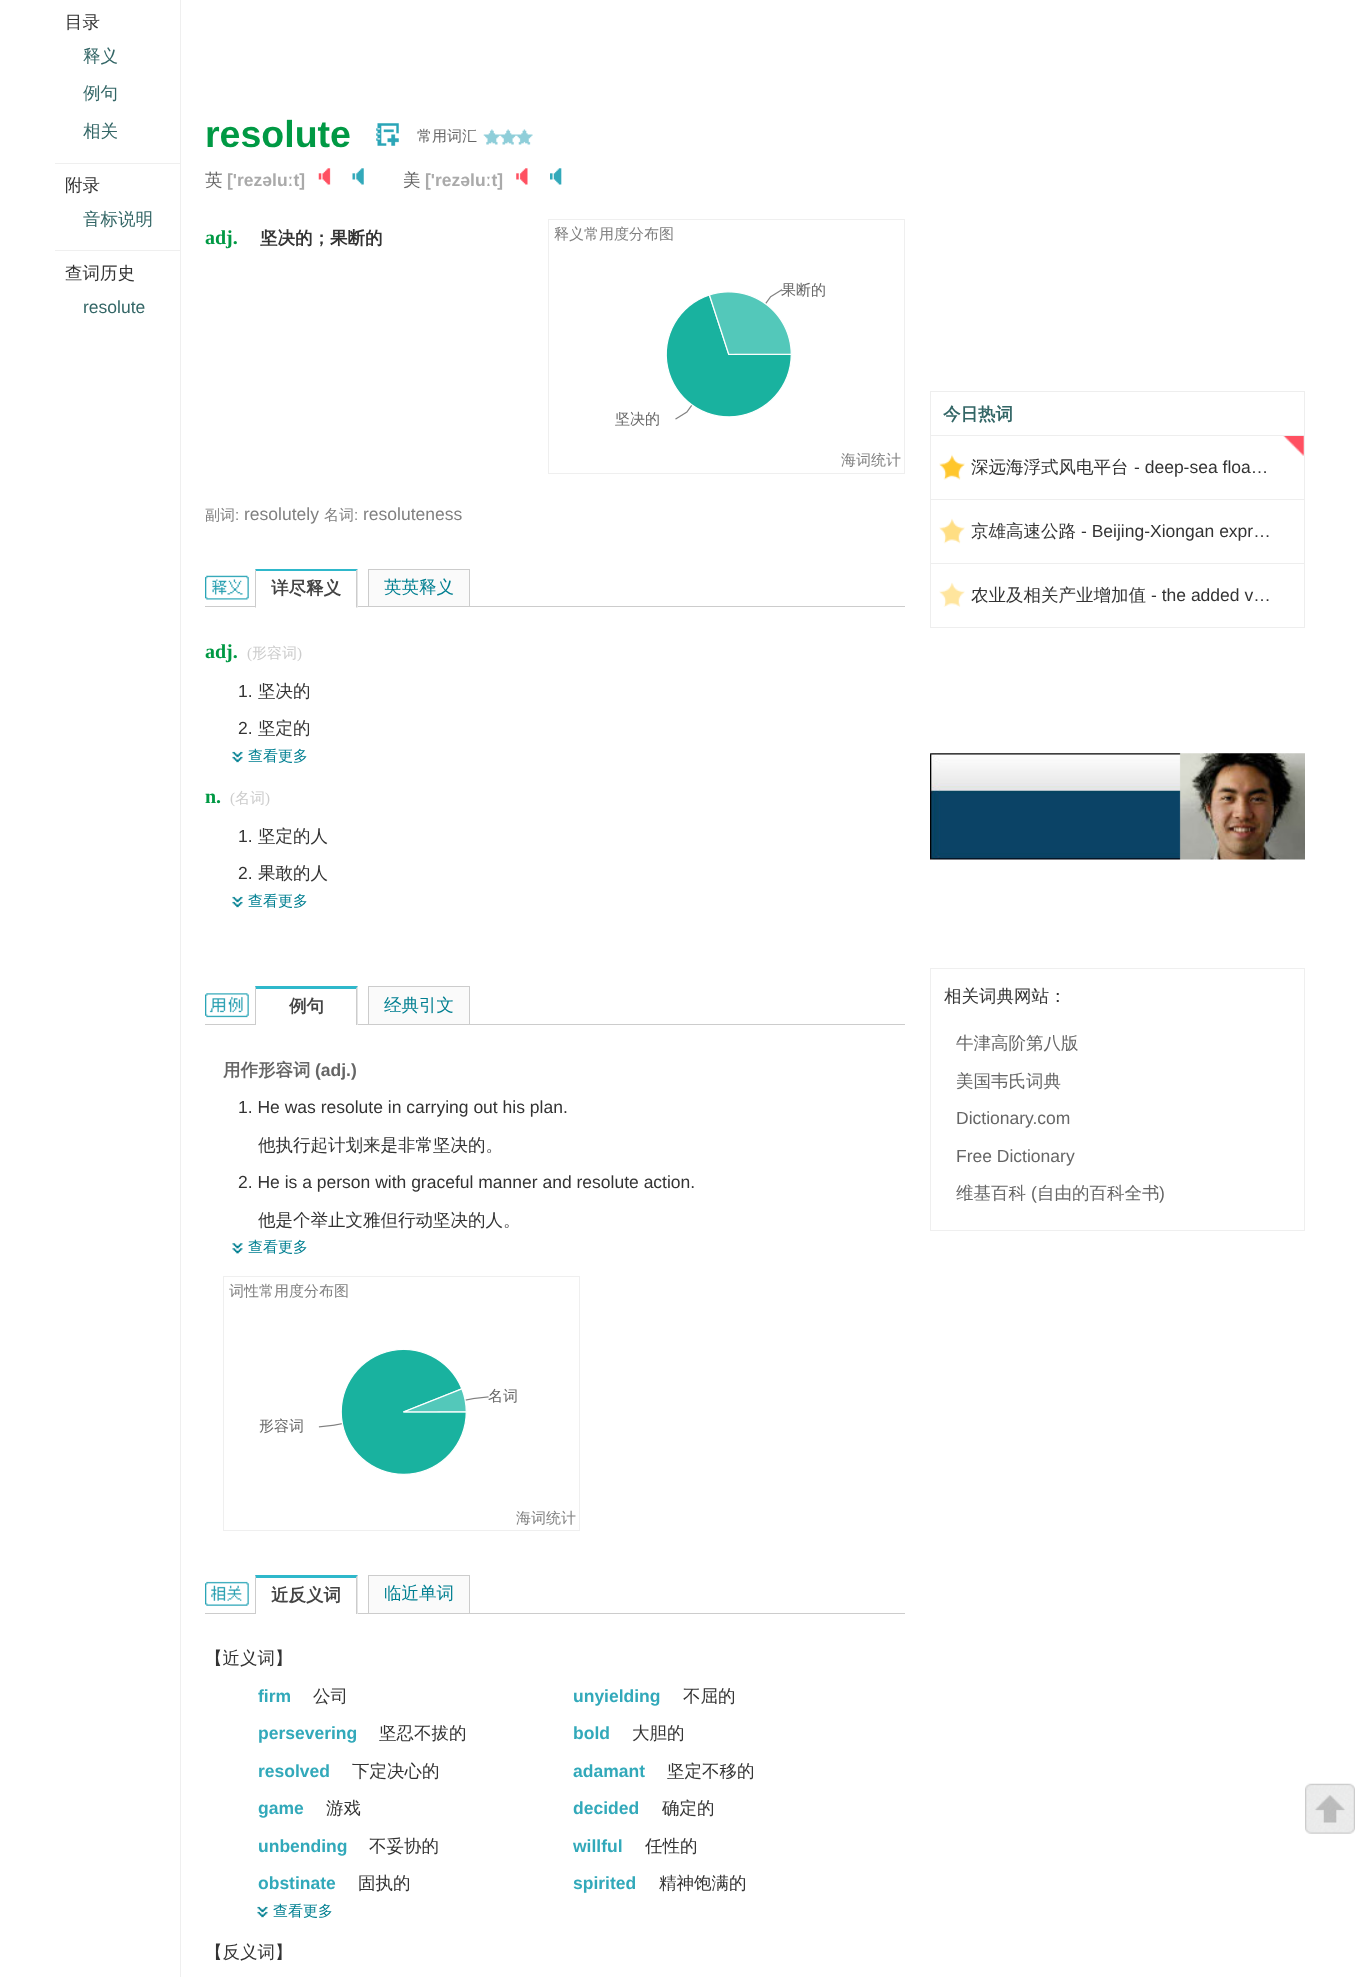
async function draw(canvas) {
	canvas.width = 1360;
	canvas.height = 1977;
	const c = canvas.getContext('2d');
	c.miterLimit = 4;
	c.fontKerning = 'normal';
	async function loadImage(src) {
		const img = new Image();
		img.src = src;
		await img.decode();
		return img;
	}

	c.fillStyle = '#fff';
	c.fillRect(0, 0, 1360, 1977);
	c.font = '500 17.5px WenQuanYi Zen Hei';
	c.fillStyle = '#333';
	c.fillText('目录', 65, 28);
	c.fillStyle = '#366';
	for (const [text, x, y] of [
		['释义', 83, 62],
		['例句', 83, 99],
		['相关', 83, 137],
	]) {
		c.fillText(text, x, y);
	}
	c.fillStyle = '#efefef';
	c.fillRect(55, 163, 125, 1);
	c.fillStyle = '#333';
	c.fillText('附录', 65, 191);
	c.fillStyle = '#366';
	c.fillText('音标说明', 83, 225);
	c.fillStyle = '#efefef';
	c.fillRect(55, 250, 125, 1);
	c.fillStyle = '#333';
	c.fillText('查词历史', 65, 279);
	c.font = '17.5px Liberation Sans';
	c.fillStyle = '#366';
	c.fillText('resolute', 83, 313);
	c.fillStyle = '#efefef';
	c.fillRect(180, 0, 1, 1977);
	c.font = 'bold 37.5px Liberation Sans';
	c.fillStyle = '#094';
	c.fillText('resolute', 205, 147);
	c.drawImage(await loadImage('img1.png'), 376, 123, 23, 23);
	c.font = '500 15px WenQuanYi Zen Hei';
	c.fillStyle = '#666';
	c.fillText('常用词汇', 417, 141);
	c.drawImage(await loadImage('img2.png'), 483, 129, 50, 16);
	c.font = '500 17.5px WenQuanYi Zen Hei';
	c.fillText('英', 205, 186);
	c.font = 'bold 17.5px Liberation Sans';
	c.fillStyle = '#aaa';
	c.fillText('[\'rezəluːt]', 227, 186);
	c.drawImage(await loadImage('img3.png'), 318, 168, 13, 17);
	c.drawImage(await loadImage('img4.png'), 352, 168, 12, 17);
	c.font = '500 17.5px WenQuanYi Zen Hei';
	c.fillStyle = '#666';
	c.fillText('美', 403, 186);
	c.font = 'bold 17.5px Liberation Sans';
	c.fillStyle = '#aaa';
	c.fillText('[\'rezəluːt]', 425, 186);
	c.drawImage(await loadImage('img5.png'), 516, 168, 12, 17);
	c.drawImage(await loadImage('img6.png'), 550, 168, 12, 17);
	c.font = 'bold 20px Liberation Serif';
	c.fillStyle = '#094';
	c.fillText('adj.', 205, 244);
	c.font = 'bold 17.5px WenQuanYi Zen Hei';
	c.fillStyle = '#333';
	c.fillText('坚决的；果断的', 260, 244);
	c.strokeStyle = '#efefef';
	c.strokeRect(548.5, 219.5, 356, 254);
	c.font = '500 15px WenQuanYi Zen Hei';
	c.fillStyle = '#808080';
	c.fillText('释义常用度分布图', 554, 239);
	c.drawImage(await loadImage('img7.png'), 666, 288, 126, 132);
	c.fillStyle = '#666';
	c.fillText('果断的', 781, 295);
	c.fillText('坚决的', 615, 424);
	c.fillStyle = '#808080';
	c.fillText('海词统计', 841, 465);
	c.fillText('副词', 205, 520);
	c.font = '15px Liberation Sans';
	c.fillText(':', 235, 520);
	c.font = '17.5px Liberation Sans';
	c.fillText('resolutely', 244, 520);
	c.font = '500 15px WenQuanYi Zen Hei';
	c.fillText('名词', 324, 520);
	c.font = '15px Liberation Sans';
	c.fillText(':', 354, 520);
	c.font = '17.5px Liberation Sans';
	c.fillText('resoluteness', 363, 520);
	c.drawImage(await loadImage('img8.png'), 205, 575, 44, 25);
	c.fillStyle = '#ccc';
	c.fillRect(205, 606, 700, 1);
	c.fillStyle = '#fff';
	c.fillRect(255, 606, 103, 1);
	c.fillStyle = '#2fb8cb';
	c.beginPath();
	c.moveTo(255, 569);
	c.lineTo(358, 569);
	c.lineTo(356, 571);
	c.lineTo(256, 571);
	c.closePath();
	c.fill();
	c.fillStyle = '#ccc';
	c.beginPath();
	c.moveTo(357.5, 569);
	c.lineTo(357.5, 607.5);
	c.lineTo(356, 607.5);
	c.lineTo(356, 571);
	c.closePath();
	c.fill();
	c.beginPath();
	c.moveTo(255, 607.5);
	c.lineTo(255, 569);
	c.lineTo(256, 571);
	c.lineTo(256, 607.5);
	c.closePath();
	c.fill();
	c.font = 'bold 17.5px WenQuanYi Zen Hei';
	c.fillStyle = '#444';
	c.fillText('详尽释义', 271, 594);
	for (const [x, y, w, h, color] of [
		[369, 570, 100, 36, '#fafafa'],
		[368, 569, 102, 1, '#ccc'],
		[469, 569, 1, 37, '#ccc'],
		[368, 569, 1, 37, '#ccc'],
	]) {
		c.fillStyle = color;
		c.fillRect(x, y, w, h);
	}
	c.font = '500 17.5px WenQuanYi Zen Hei';
	c.fillStyle = '#007f91';
	c.fillText('英英释义', 384, 593);
	c.font = 'bold 20px Liberation Serif';
	c.fillStyle = '#094';
	c.fillText('adj.', 205, 658);
	c.font = '15px Liberation Serif';
	c.fillStyle = '#ccc';
	c.fillText('(', 247, 658);
	c.font = '500 15px WenQuanYi Zen Hei';
	c.fillText('形容词', 252, 658);
	c.font = '15px Liberation Serif';
	c.fillText(')', 297, 658);
	c.font = '17.5px Liberation Sans';
	c.fillStyle = '#333';
	c.fillText('1.', 238, 697);
	c.font = '500 17.5px WenQuanYi Zen Hei';
	c.fillText('坚决的', 258, 697);
	c.font = '17.5px Liberation Sans';
	c.fillText('2.', 238, 734);
	c.font = '500 17.5px WenQuanYi Zen Hei';
	c.fillText('坚定的', 258, 734);
	c.drawImage(await loadImage('img9.png'), 232, 751, 11, 12);
	c.font = '500 15px WenQuanYi Zen Hei';
	c.fillStyle = '#007f91';
	c.fillText('查看更多', 248, 761);
	c.font = 'bold 20px Liberation Serif';
	c.fillStyle = '#094';
	c.fillText('n.', 205, 803);
	c.font = '15px Liberation Serif';
	c.fillStyle = '#ccc';
	c.fillText('(', 230, 803);
	c.font = '500 15px WenQuanYi Zen Hei';
	c.fillText('名词', 235, 803);
	c.font = '15px Liberation Serif';
	c.fillText(')', 265, 803);
	c.font = '17.5px Liberation Sans';
	c.fillStyle = '#333';
	c.fillText('1.', 238, 842);
	c.font = '500 17.5px WenQuanYi Zen Hei';
	c.fillText('坚定的人', 258, 842);
	c.font = '17.5px Liberation Sans';
	c.fillText('2.', 238, 879);
	c.font = '500 17.5px WenQuanYi Zen Hei';
	c.fillText('果敢的人', 258, 879);
	c.drawImage(await loadImage('img9.png'), 232, 896, 11, 12);
	c.font = '500 15px WenQuanYi Zen Hei';
	c.fillStyle = '#007f91';
	c.fillText('查看更多', 248, 906);
	c.drawImage(await loadImage('img10.png'), 205, 993, 44, 25);
	c.fillStyle = '#ccc';
	c.fillRect(205, 1024, 700, 1);
	c.fillStyle = '#fff';
	c.fillRect(255, 1024, 103, 1);
	c.fillStyle = '#2fb8cb';
	c.beginPath();
	c.moveTo(255, 986);
	c.lineTo(358, 986);
	c.lineTo(356, 989);
	c.lineTo(256, 989);
	c.closePath();
	c.fill();
	c.fillStyle = '#ccc';
	c.beginPath();
	c.moveTo(357.5, 986);
	c.lineTo(357.5, 1025);
	c.lineTo(356, 1025);
	c.lineTo(356, 989);
	c.closePath();
	c.fill();
	c.beginPath();
	c.moveTo(255, 1025);
	c.lineTo(255, 986);
	c.lineTo(256, 989);
	c.lineTo(256, 1025);
	c.closePath();
	c.fill();
	c.font = 'bold 17.5px WenQuanYi Zen Hei';
	c.fillStyle = '#444';
	c.fillText('例句', 289, 1012);
	for (const [x, y, w, h, color] of [
		[369, 987, 100, 37, '#fafafa'],
		[368, 986, 102, 1, '#ccc'],
		[469, 986, 1, 38, '#ccc'],
		[368, 986, 1, 38, '#ccc'],
	]) {
		c.fillStyle = color;
		c.fillRect(x, y, w, h);
	}
	c.font = '500 17.5px WenQuanYi Zen Hei';
	c.fillStyle = '#007f91';
	c.fillText('经典引文', 384, 1011);
	c.font = 'bold 17.5px WenQuanYi Zen Hei';
	c.fillStyle = '#666';
	c.fillText('用作形容词', 223, 1076);
	c.font = 'bold 17.5px Liberation Sans';
	c.fillText('(adj.)', 315, 1076);
	c.font = '17.5px Liberation Sans';
	c.fillStyle = '#333';
	c.fillText('1. He was resolute in carrying out his plan.', 238, 1113);
	c.font = '500 17.5px WenQuanYi Zen Hei';
	c.fillText('他执行起计划来是非常坚决的。', 258, 1151);
	c.font = '17.5px Liberation Sans';
	c.fillText('2. He is a person with graceful manner and resolute action.', 238, 1188);
	c.font = '500 17.5px WenQuanYi Zen Hei';
	c.fillText('他是个举止文雅但行动坚决的人。', 258, 1226);
	c.drawImage(await loadImage('img11.png'), 232, 1243, 11, 11);
	c.font = '500 15px WenQuanYi Zen Hei';
	c.fillStyle = '#007f91';
	c.fillText('查看更多', 248, 1252);
	c.strokeRect(223.5, 1276.5, 356, 254);
	c.fillStyle = '#808080';
	c.fillText('词性常用度分布图', 229, 1296);
	c.drawImage(await loadImage('img12.png'), 318, 1349, 171, 126);
	c.fillStyle = '#666';
	c.fillText('名词', 488, 1401);
	c.fillText('形容词', 259, 1431);
	c.fillStyle = '#808080';
	c.fillText('海词统计', 516, 1523);
	c.drawImage(await loadImage('img13.png'), 205, 1581, 44, 25);
	c.fillStyle = '#ccc';
	c.fillRect(205, 1613, 700, 1);
	c.fillStyle = '#fff';
	c.fillRect(255, 1613, 103, 1);
	c.fillStyle = '#2fb8cb';
	c.beginPath();
	c.moveTo(255, 1575);
	c.lineTo(358, 1575);
	c.lineTo(356, 1578);
	c.lineTo(256, 1578);
	c.closePath();
	c.fill();
	c.fillStyle = '#ccc';
	c.beginPath();
	c.moveTo(357.5, 1575);
	c.lineTo(357.5, 1614);
	c.lineTo(356, 1614);
	c.lineTo(356, 1577.5);
	c.closePath();
	c.fill();
	c.beginPath();
	c.moveTo(255, 1614);
	c.lineTo(255, 1575);
	c.lineTo(256, 1577.5);
	c.lineTo(256, 1614);
	c.closePath();
	c.fill();
	c.font = 'bold 17.5px WenQuanYi Zen Hei';
	c.fillStyle = '#444';
	c.fillText('近反义词', 271, 1601);
	for (const [x, y, w, h, color] of [
		[369, 1576, 100, 37, '#fafafa'],
		[368, 1575, 102, 1, '#ccc'],
		[469, 1575, 1, 38, '#ccc'],
		[368, 1575, 1, 38, '#ccc'],
	]) {
		c.fillStyle = color;
		c.fillRect(x, y, w, h);
	}
	c.font = '500 17.5px WenQuanYi Zen Hei';
	c.fillStyle = '#007f91';
	c.fillText('临近单词', 384, 1599);
	c.fillStyle = '#333';
	c.fillText('【近义词】', 205, 1664);
	c.font = 'bold 17.5px Liberation Sans';
	c.fillStyle = '#32a9ba';
	c.fillText('firm', 258, 1702);
	c.font = '500 17.5px WenQuanYi Zen Hei';
	c.fillStyle = '#333';
	c.fillText('公司', 313, 1702);
	c.font = 'bold 17.5px Liberation Sans';
	c.fillStyle = '#32a9ba';
	c.fillText('unyielding', 573, 1702);
	c.font = '500 17.5px WenQuanYi Zen Hei';
	c.fillStyle = '#333';
	c.fillText('不屈的', 683, 1702);
	c.font = 'bold 17.5px Liberation Sans';
	c.fillStyle = '#32a9ba';
	c.fillText('persevering', 258, 1739);
	c.font = '500 17.5px WenQuanYi Zen Hei';
	c.fillStyle = '#333';
	c.fillText('坚忍不拔的', 379, 1739);
	c.font = 'bold 17.5px Liberation Sans';
	c.fillStyle = '#32a9ba';
	c.fillText('bold', 573, 1739);
	c.font = '500 17.5px WenQuanYi Zen Hei';
	c.fillStyle = '#333';
	c.fillText('大胆的', 632, 1739);
	c.font = 'bold 17.5px Liberation Sans';
	c.fillStyle = '#32a9ba';
	c.fillText('resolved', 258, 1777);
	c.font = '500 17.5px WenQuanYi Zen Hei';
	c.fillStyle = '#333';
	c.fillText('下定决心的', 352, 1777);
	c.font = 'bold 17.5px Liberation Sans';
	c.fillStyle = '#32a9ba';
	c.fillText('adamant', 573, 1777);
	c.font = '500 17.5px WenQuanYi Zen Hei';
	c.fillStyle = '#333';
	c.fillText('坚定不移的', 667, 1777);
	c.font = 'bold 17.5px Liberation Sans';
	c.fillStyle = '#32a9ba';
	c.fillText('game', 258, 1814);
	c.font = '500 17.5px WenQuanYi Zen Hei';
	c.fillStyle = '#333';
	c.fillText('游戏', 326, 1814);
	c.font = 'bold 17.5px Liberation Sans';
	c.fillStyle = '#32a9ba';
	c.fillText('decided', 573, 1814);
	c.font = '500 17.5px WenQuanYi Zen Hei';
	c.fillStyle = '#333';
	c.fillText('确定的', 662, 1814);
	c.font = 'bold 17.5px Liberation Sans';
	c.fillStyle = '#32a9ba';
	c.fillText('unbending', 258, 1852);
	c.font = '500 17.5px WenQuanYi Zen Hei';
	c.fillStyle = '#333';
	c.fillText('不妥协的', 369, 1852);
	c.font = 'bold 17.5px Liberation Sans';
	c.fillStyle = '#32a9ba';
	c.fillText('willful', 573, 1852);
	c.font = '500 17.5px WenQuanYi Zen Hei';
	c.fillStyle = '#333';
	c.fillText('任性的', 645, 1852);
	c.font = 'bold 17.5px Liberation Sans';
	c.fillStyle = '#32a9ba';
	c.fillText('obstinate', 258, 1889);
	c.font = '500 17.5px WenQuanYi Zen Hei';
	c.fillStyle = '#333';
	c.fillText('固执的', 358, 1889);
	c.font = 'bold 17.5px Liberation Sans';
	c.fillStyle = '#32a9ba';
	c.fillText('spirited', 573, 1889);
	c.font = '500 17.5px WenQuanYi Zen Hei';
	c.fillStyle = '#333';
	c.fillText('精神饱满的', 659, 1889);
	c.drawImage(await loadImage('img9.png'), 257, 1906, 11, 12);
	c.font = '500 15px WenQuanYi Zen Hei';
	c.fillStyle = '#007f91';
	c.fillText('查看更多', 273, 1916);
	c.font = '500 17.5px WenQuanYi Zen Hei';
	c.fillStyle = '#333';
	c.fillText('【反义词】', 205, 1958);
	c.strokeStyle = '#eee';
	c.strokeRect(930.5, 391.5, 374, 236);
	c.font = 'bold 17.5px WenQuanYi Zen Hei';
	c.fillStyle = '#366';
	c.fillText('今日热词', 943, 420);
	c.drawImage(await loadImage('img14.png'), 1283, 436, 21, 20);
	c.fillStyle = '#eee';
	c.fillRect(931, 435, 373, 1);
	c.drawImage(await loadImage('img15.png'), 939, 454, 26, 26);
	c.font = '500 17.5px WenQuanYi Zen Hei';
	c.fillStyle = '#333';
	c.fillText('深远海浮式风电平台', 971, 473);
	c.font = '17.5px Liberation Sans';
	c.fillText('- deep-sea floa…', 1134, 473);
	c.fillStyle = '#eee';
	c.fillRect(931, 499, 373, 1);
	c.drawImage(await loadImage('img16.png'), 939, 518, 26, 26);
	c.font = '500 17.5px WenQuanYi Zen Hei';
	c.fillStyle = '#333';
	c.fillText('京雄高速公路', 971, 537);
	c.font = '17.5px Liberation Sans';
	c.fillText('- Beijing-Xiongan expr…', 1081, 537);
	c.fillStyle = '#eee';
	c.fillRect(931, 563, 373, 1);
	c.drawImage(await loadImage('img17.png'), 939, 582, 26, 25);
	c.font = '500 17.5px WenQuanYi Zen Hei';
	c.fillStyle = '#333';
	c.fillText('农业及相关产业增加值', 971, 601);
	c.font = '17.5px Liberation Sans';
	c.fillText('- the added v…', 1151, 601);
	c.drawImage(await loadImage('img18.png'), 930, 753, 375, 107);
	c.strokeStyle = '#efefef';
	c.strokeRect(930.5, 968.5, 374, 262);
	c.font = '500 17.5px WenQuanYi Zen Hei';
	c.fillText('相关词典网站：', 944, 1002);
	c.fillStyle = '#666';
	c.fillText('牛津高阶第八版', 956, 1049);
	c.fillText('美国韦氏词典', 956, 1087);
	c.font = '17.5px Liberation Sans';
	c.fillText('Dictionary.com', 956, 1124);
	c.fillText('Free Dictionary', 956, 1162);
	c.font = '500 17.5px WenQuanYi Zen Hei';
	c.fillText('维基百科', 956, 1199);
	c.font = '17.5px Liberation Sans';
	c.fillText('(', 1031, 1199);
	c.font = '500 17.5px WenQuanYi Zen Hei';
	c.fillText('自由的百科全书', 1037, 1199);
	c.font = '17.5px Liberation Sans';
	c.fillText(')', 1159, 1199);
	c.drawImage(await loadImage('img19.png'), 1305, 1783, 50, 51);
}

draw(document.querySelector('canvas'));
